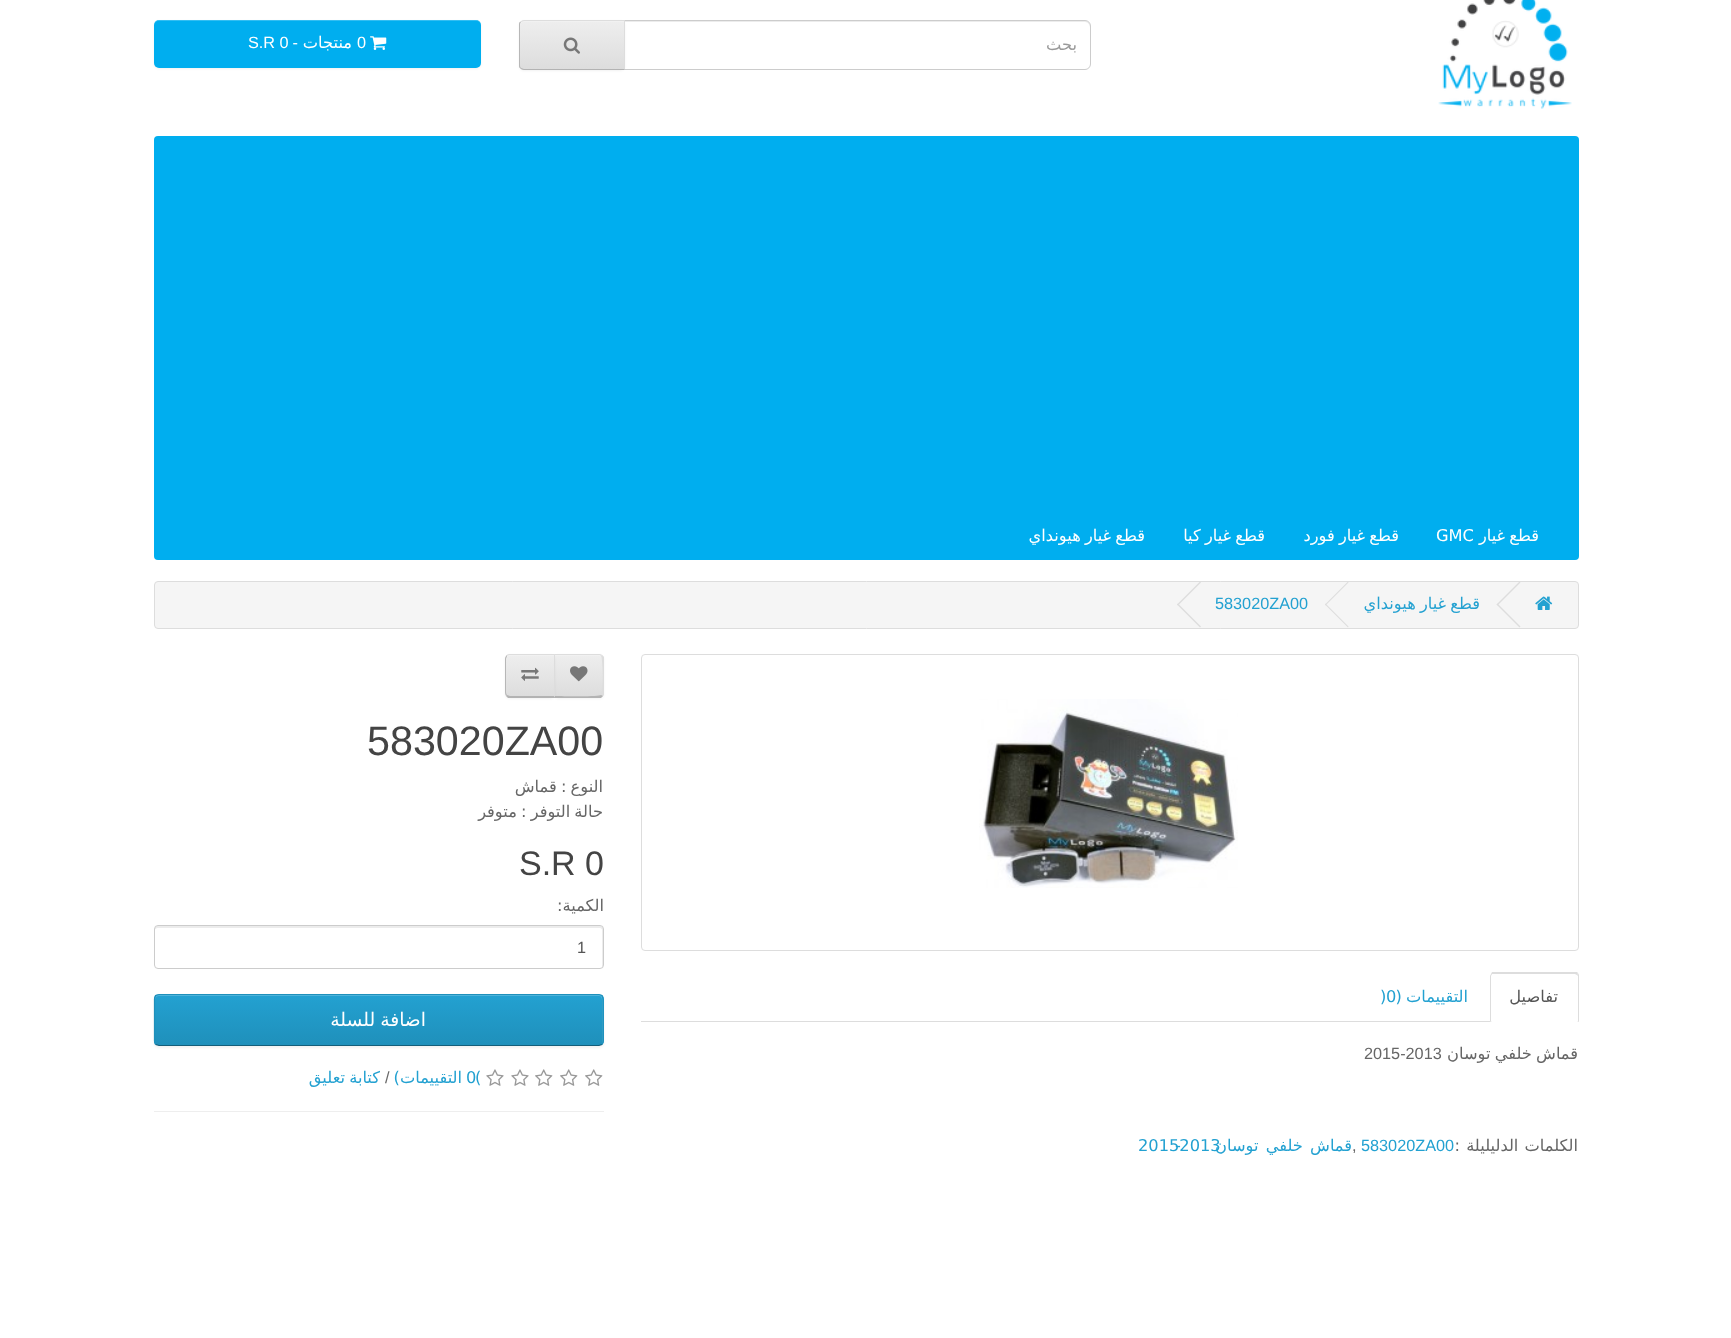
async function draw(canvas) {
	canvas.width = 1731;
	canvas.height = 1338;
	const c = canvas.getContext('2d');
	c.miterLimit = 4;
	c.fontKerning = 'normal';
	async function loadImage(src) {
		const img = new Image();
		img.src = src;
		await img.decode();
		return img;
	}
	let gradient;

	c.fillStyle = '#fff';
	c.fillRect(0, 0, 1731, 1338);
	c.drawImage(await loadImage('img1.png'), 1438, 0, 134, 109);
	c.fillStyle = '#ececec';
	c.beginPath();
	c.moveTo(625, 22);
	c.lineTo(1085, 22);
	c.bezierCurveTo(1088, 22, 1090, 25, 1090, 28);
	c.lineTo(1090, 26);
	c.bezierCurveTo(1090, 23, 1088, 21, 1085, 21);
	c.lineTo(625, 21);
	c.closePath();
	c.fill();
	c.beginPath();
	c.roundRect(624.5, 20.5, 466, 49, [0, 5.5, 5.5, 0]);
	c.strokeStyle = '#ccc';
	c.stroke();
	c.direction = 'rtl';
	c.font = '16.25px DejaVu Sans';
	c.fillStyle = '#999';
	c.fillText('بحث', 1077, 50);
	c.fillStyle = '#0000000d';
	c.filter = 'blur(1px)';
	c.beginPath();
	c.roundRect(519, 21, 106, 50, 5);
	c.fill();
	c.filter = 'none';
	c.save();
	c.beginPath();
	c.roundRect(519, 20, 106, 50, [5, 0, 0, 5]);
	c.clip();
	gradient = c.createLinearGradient(572, 21, 572, 69);
	gradient.addColorStop(0, '#eee');
	gradient.addColorStop(1, '#ddd');
	c.fillStyle = gradient;
	c.fillRect(519, 21, 105, 48);
	c.restore();
	c.fillStyle = '#f1f1f1';
	c.beginPath();
	c.moveTo(524, 22);
	c.lineTo(624, 22);
	c.lineTo(624, 21);
	c.lineTo(524, 21);
	c.bezierCurveTo(522, 21, 520, 23, 520, 25);
	c.lineTo(520, 26);
	c.bezierCurveTo(520, 24, 522, 22, 524, 22);
	c.closePath();
	c.fill();
	c.fillStyle = '#ddd';
	c.beginPath();
	c.moveTo(524, 20);
	c.bezierCurveTo(522, 20, 521, 21, 520, 22);
	c.lineTo(521, 22);
	c.lineTo(524, 21);
	c.lineTo(624, 21);
	c.lineTo(625, 20);
	c.closePath();
	c.fill();
	c.beginPath();
	c.moveTo(625, 20);
	c.lineTo(624, 21);
	c.lineTo(624, 69);
	c.lineTo(625, 70);
	c.closePath();
	c.fill();
	c.fillStyle = '#b3b3b3';
	c.beginPath();
	c.moveTo(625, 70);
	c.lineTo(624, 69);
	c.lineTo(524, 69);
	c.lineTo(521, 68);
	c.lineTo(520, 68);
	c.bezierCurveTo(521, 69, 522, 70, 524, 70);
	c.closePath();
	c.fill();
	c.fillStyle = '#b7b7b7';
	c.beginPath();
	c.moveTo(520, 22);
	c.bezierCurveTo(519, 22, 519, 24, 519, 25);
	c.lineTo(519, 65);
	c.bezierCurveTo(519, 66, 519, 68, 520, 68);
	c.lineTo(521, 68);
	c.bezierCurveTo(520, 67, 520, 66, 520, 65);
	c.lineTo(520, 25);
	c.bezierCurveTo(520, 24, 520, 23, 521, 22);
	c.closePath();
	c.fill();
	c.drawImage(await loadImage('img2.png'), 563, 37, 17, 17);
	c.fillStyle = '#0000000d';
	c.filter = 'blur(1px)';
	c.beginPath();
	c.roundRect(154, 21, 327, 48, 5);
	c.fill();
	c.filter = 'none';
	c.fillStyle = '#00aeef';
	c.beginPath();
	c.roundRect(154, 20, 327, 48, 5);
	c.fill();
	c.fillStyle = '#ffffff33';
	c.beginPath();
	c.moveTo(159, 21);
	c.lineTo(476, 21);
	c.bezierCurveTo(479, 21, 481, 23, 481, 26);
	c.bezierCurveTo(481, 23, 479, 20, 476, 20);
	c.lineTo(159, 20);
	c.bezierCurveTo(156, 20, 154, 23, 154, 26);
	c.bezierCurveTo(154, 23, 156, 21, 159, 21);
	c.closePath();
	c.fill();
	c.drawImage(await loadImage('img3.png'), 370, 36, 17, 14);
	c.direction = 'ltr';
	c.font = '16.25px Liberation Sans';
	c.fillStyle = '#fff';
	c.fillText('0', 357, 48);
	c.direction = 'rtl';
	c.font = '16.25px DejaVu Sans';
	c.fillText('منتجات', 352, 48);
	c.font = '16.25px Liberation Sans';
	c.fillText('-', 298, 48);
	c.direction = 'ltr';
	c.fillText('S.R 0', 248, 48);
	c.fillStyle = '#00aeef';
	c.beginPath();
	c.roundRect(154, 136, 1425, 424, 4);
	c.fill();
	c.wordSpacing = '-1px';
	c.direction = 'rtl';
	c.font = '16.25px DejaVu Sans';
	c.fillStyle = '#fff';
	c.fillText('قطع غيار', 1539, 541);
	c.wordSpacing = '0px';
	c.direction = 'ltr';
	c.fillText('GMC', 1436, 541);
	c.wordSpacing = '-1px';
	c.direction = 'rtl';
	for (const [text, x, y] of [
		['قطع غيار فورد', 1399, 541],
		['قطع غيار كيا', 1265, 541],
		['قطع غيار هيونداي', 1145, 541],
	]) {
		c.fillText(text, x, y);
	}
	c.fillStyle = '#f5f5f5';
	c.beginPath();
	c.roundRect(154.5, 581.5, 1424, 47, 3.5);
	c.fill();
	c.strokeStyle = '#ddd';
	c.stroke();
	c.drawImage(await loadImage('img4.png'), 1535, 596, 18, 14);
	c.fillStyle = '#ddd';
	c.beginPath();
	c.moveTo(1497.5, 603.5);
	c.lineTo(1520.5, 626.5);
	c.lineTo(1519.5, 627.5);
	c.lineTo(1496.5, 604.5);
	c.closePath();
	c.fill();
	c.beginPath();
	c.moveTo(1519.5, 581.5);
	c.lineTo(1520.5, 582.5);
	c.lineTo(1497.5, 605.5);
	c.lineTo(1496.5, 604.5);
	c.closePath();
	c.fill();
	c.fillStyle = '#23a1d1';
	c.fillText('قطع غيار هيونداي', 1480, 609);
	c.fillStyle = '#ddd';
	c.beginPath();
	c.moveTo(1325.5, 603.5);
	c.lineTo(1348.5, 626.5);
	c.lineTo(1348, 627.5);
	c.lineTo(1325, 604.5);
	c.closePath();
	c.fill();
	c.beginPath();
	c.moveTo(1348, 581.5);
	c.lineTo(1348.5, 582.5);
	c.lineTo(1325.5, 605.5);
	c.lineTo(1325, 604.5);
	c.closePath();
	c.fill();
	c.wordSpacing = '0px';
	c.direction = 'ltr';
	c.font = '16.25px Liberation Sans';
	c.fillStyle = '#23a1d1';
	c.fillText('583020ZA00', 1215, 609);
	c.fillStyle = '#ddd';
	c.beginPath();
	c.moveTo(1178, 603.5);
	c.lineTo(1201, 626.5);
	c.lineTo(1200, 627.5);
	c.lineTo(1177, 604.5);
	c.closePath();
	c.fill();
	c.beginPath();
	c.moveTo(1200, 581.5);
	c.lineTo(1201, 582.5);
	c.lineTo(1178, 605.5);
	c.lineTo(1177, 604.5);
	c.closePath();
	c.fill();
	c.beginPath();
	c.roundRect(641.5, 654.5, 937, 296, 3.5);
	c.stroke();
	c.drawImage(await loadImage('img5.png'), 979, 699, 259, 189);
	c.fillRect(641, 1021, 849, 1);
	c.beginPath();
	c.moveTo(1494, 974);
	c.lineTo(1492, 974);
	c.lineTo(1491, 974);
	c.lineTo(1492, 972);
	c.lineTo(1577, 972);
	c.lineTo(1578, 973);
	c.lineTo(1577, 975);
	c.lineTo(1575, 974);
	c.closePath();
	c.fill();
	c.beginPath();
	c.moveTo(1579, 1022);
	c.lineTo(1577, 1021);
	c.lineTo(1578, 1021);
	c.lineTo(1578, 976);
	c.lineTo(1577, 975);
	c.lineTo(1578, 973);
	c.lineTo(1579, 975);
	c.closePath();
	c.fill();
	c.beginPath();
	c.moveTo(1490, 976);
	c.lineTo(1490, 1022);
	c.lineTo(1492, 1021);
	c.lineTo(1491, 1021);
	c.lineTo(1491, 976);
	c.lineTo(1492, 974);
	c.lineTo(1491, 974);
	c.closePath();
	c.fill();
	c.direction = 'rtl';
	c.font = '16.25px DejaVu Sans';
	c.fillStyle = '#555';
	c.fillText('تفاصيل', 1558, 1002);
	c.wordSpacing = '-1px';
	c.fillStyle = '#23a1d1';
	c.fillText('التقييمات (', 1468, 1002);
	c.wordSpacing = '0px';
	c.direction = 'ltr';
	c.fillText('0', 1386, 1002);
	c.fillText(')', 1380, 1002);
	c.wordSpacing = '-1px';
	c.direction = 'rtl';
	c.fillStyle = '#666';
	c.fillText('قماش خلفي توسان', 1578, 1059);
	c.wordSpacing = '0px';
	c.direction = 'ltr';
	c.font = '16.25px Liberation Sans';
	c.fillText('2015-2013', 1364, 1059);
	c.fillStyle = '#0000000d';
	c.filter = 'blur(1px)';
	c.beginPath();
	c.roundRect(554, 655, 50, 44, 5);
	c.fill();
	c.filter = 'none';
	c.fillStyle = '#e7e7e7';
	c.beginPath();
	c.roundRect(554, 654, 50, 44, [0, 5, 5, 0]);
	c.fill();
	c.save();
	c.beginPath();
	c.roundRect(554, 654, 50, 44, [0, 5, 5, 0]);
	c.clip();
	gradient = c.createLinearGradient(579, 655, 579, 696);
	gradient.addColorStop(0, '#eee');
	gradient.addColorStop(1, '#ddd');
	c.fillStyle = gradient;
	c.fillRect(555, 655, 49, 41);
	c.restore();
	c.fillStyle = '#ffffff33';
	c.beginPath();
	c.moveTo(555, 656);
	c.lineTo(600, 656);
	c.bezierCurveTo(604, 657, 602, 669, 602, 671);
	c.lineTo(602, 695);
	c.bezierCurveTo(603, 694, 603, 693, 603, 692);
	c.lineTo(603, 659);
	c.bezierCurveTo(603, 657, 601, 655, 599, 655);
	c.lineTo(555, 655);
	c.closePath();
	c.fill();
	c.fillStyle = '#ddd';
	c.beginPath();
	c.moveTo(554, 654);
	c.lineTo(555, 655);
	c.lineTo(600, 655);
	c.lineTo(601, 656);
	c.lineTo(602, 655);
	c.lineTo(599, 654);
	c.closePath();
	c.fill();
	c.beginPath();
	c.moveTo(602, 655);
	c.lineTo(604, 657);
	c.lineTo(604, 694);
	c.lineTo(603, 696);
	c.lineTo(601, 695);
	c.bezierCurveTo(603, 693, 603, 658, 601, 656);
	c.closePath();
	c.fill();
	c.fillStyle = '#b3b3b3';
	c.beginPath();
	c.moveTo(554, 698);
	c.lineTo(555, 696);
	c.bezierCurveTo(561, 696, 600, 697, 601, 695);
	c.lineTo(603, 696);
	c.lineTo(601, 698);
	c.closePath();
	c.fill();
	c.drawImage(await loadImage('img6.png'), 570, 666, 18, 16);
	c.fillStyle = '#0000000d';
	c.filter = 'blur(1px)';
	c.beginPath();
	c.roundRect(505, 655, 50, 44, 5);
	c.fill();
	c.filter = 'none';
	c.save();
	c.beginPath();
	c.roundRect(505, 654, 50, 44, [5, 0, 0, 5]);
	c.clip();
	gradient = c.createLinearGradient(530, 655, 530, 696);
	gradient.addColorStop(0, '#eee');
	gradient.addColorStop(1, '#ddd');
	c.fillStyle = gradient;
	c.fillRect(505, 655, 49, 41);
	c.restore();
	c.fillStyle = '#f1f1f1';
	c.beginPath();
	c.moveTo(510, 656);
	c.lineTo(554, 656);
	c.lineTo(554, 655);
	c.lineTo(510, 655);
	c.bezierCurveTo(508, 655, 506, 657, 506, 659);
	c.lineTo(506, 660);
	c.bezierCurveTo(506, 658, 508, 656, 510, 656);
	c.closePath();
	c.fill();
	c.fillStyle = '#ddd';
	c.beginPath();
	c.moveTo(510, 654);
	c.bezierCurveTo(509, 654, 507, 654, 507, 655);
	c.lineTo(507, 656);
	c.bezierCurveTo(508, 655, 509, 655, 510, 655);
	c.lineTo(554, 655);
	c.lineTo(555, 654);
	c.closePath();
	c.fill();
	c.beginPath();
	c.moveTo(555, 698);
	c.lineTo(555, 654);
	c.lineTo(554, 655);
	c.lineTo(554, 696);
	c.closePath();
	c.fill();
	c.fillStyle = '#b3b3b3';
	c.beginPath();
	c.moveTo(555, 698);
	c.lineTo(508, 698);
	c.lineTo(506, 696);
	c.lineTo(507, 695);
	c.lineTo(510, 696);
	c.lineTo(554, 696);
	c.closePath();
	c.fill();
	c.fillStyle = '#b7b7b7';
	c.beginPath();
	c.moveTo(505, 659);
	c.lineTo(505, 692);
	c.bezierCurveTo(505, 694, 506, 695, 506, 696);
	c.lineTo(507, 695);
	c.bezierCurveTo(507, 695, 506, 694, 506, 692);
	c.lineTo(506, 659);
	c.bezierCurveTo(506, 658, 507, 657, 507, 656);
	c.lineTo(507, 655);
	c.bezierCurveTo(506, 656, 505, 657, 505, 659);
	c.closePath();
	c.fill();
	c.drawImage(await loadImage('img7.png'), 521, 667, 18, 14);
	c.font = '41.25px Liberation Sans';
	c.fillStyle = '#444';
	c.fillText('583020ZA00', 367, 755);
	c.wordSpacing = '-1px';
	c.direction = 'rtl';
	c.font = '16.25px DejaVu Sans';
	c.fillStyle = '#666';
	c.fillText('النوع : قماش', 603, 792);
	c.fillText('حالة التوفر : متوفر', 603, 817);
	c.wordSpacing = '0px';
	c.direction = 'ltr';
	c.font = '34px Liberation Sans';
	c.fillStyle = '#444';
	c.fillText('S.R 0', 519, 875);
	c.direction = 'rtl';
	c.font = '16.25px DejaVu Sans';
	c.fillStyle = '#666';
	c.fillText('الكمية:', 604, 911);
	c.fillStyle = '#ececec';
	c.beginPath();
	c.moveTo(158, 928);
	c.lineTo(600, 928);
	c.bezierCurveTo(601, 928, 602, 929, 602, 930);
	c.lineTo(602, 968);
	c.bezierCurveTo(602, 967, 603, 966, 603, 966);
	c.lineTo(603, 928);
	c.bezierCurveTo(603, 927, 602, 926, 600, 926);
	c.lineTo(158, 926);
	c.bezierCurveTo(156, 926, 155, 927, 155, 928);
	c.lineTo(155, 930);
	c.bezierCurveTo(155, 929, 156, 928, 158, 928);
	c.closePath();
	c.fill();
	c.beginPath();
	c.roundRect(154.5, 925.5, 449, 43, 3.5);
	c.strokeStyle = '#ccc';
	c.stroke();
	c.direction = 'ltr';
	c.font = '16.25px Liberation Sans';
	c.fillStyle = '#555';
	c.fillText('1', 577, 953);
	c.fillStyle = '#0000000d';
	c.filter = 'blur(1px)';
	c.beginPath();
	c.roundRect(154, 995, 450, 53, 5);
	c.fill();
	c.filter = 'none';
	c.save();
	c.beginPath();
	c.roundRect(154, 994, 450, 52, 5);
	c.clip();
	gradient = c.createLinearGradient(379, 995, 379, 1045);
	gradient.addColorStop(0, '#23a1d1');
	gradient.addColorStop(1, '#1f90bb');
	c.fillStyle = gradient;
	c.fillRect(154, 995, 450, 50);
	c.restore();
	c.fillStyle = '#ffffff33';
	c.beginPath();
	c.moveTo(159, 996);
	c.lineTo(599, 996);
	c.bezierCurveTo(601, 996, 602, 998, 602, 1000);
	c.lineTo(602, 1044);
	c.bezierCurveTo(603, 1043, 603, 1042, 603, 1041);
	c.lineTo(603, 999);
	c.bezierCurveTo(603, 997, 601, 995, 599, 995);
	c.lineTo(159, 995);
	c.bezierCurveTo(157, 995, 155, 997, 155, 999);
	c.lineTo(155, 1000);
	c.bezierCurveTo(155, 998, 157, 996, 159, 996);
	c.closePath();
	c.fill();
	c.beginPath();
	c.moveTo(602, 1044.5);
	c.lineTo(599, 1045.5);
	c.lineTo(159, 1045.5);
	c.lineTo(155.5, 1044.5);
	c.strokeStyle = '#145e7a';
	c.lineWidth = 1.2;
	c.stroke();
	c.beginPath();
	c.moveTo(155.5, 1044.5);
	c.bezierCurveTo(155, 1043.5, 154.5, 1042.5, 154.5, 1041);
	c.lineTo(154.5, 999);
	c.bezierCurveTo(154.5, 997.5, 155, 996.5, 155.5, 995.5);
	c.bezierCurveTo(156.5, 995, 157.5, 994.5, 159, 994.5);
	c.lineTo(599, 994.5);
	c.bezierCurveTo(600, 994.5, 601, 995, 602, 995.5);
	c.bezierCurveTo(602.5, 996.5, 603, 997.5, 603, 999);
	c.lineTo(603, 1041);
	c.bezierCurveTo(603, 1042.5, 602.5, 1043.5, 602, 1044.5);
	c.strokeStyle = '#1f90bb';
	c.stroke();
	c.wordSpacing = '-1px';
	c.direction = 'rtl';
	c.font = '18.75px DejaVu Sans';
	c.fillStyle = '#fff';
	c.fillText('اضافة للسلة', 426, 1026);
	c.drawImage(await loadImage('img8.png'), 585, 1069, 18, 17);
	c.drawImage(await loadImage('img8.png'), 560, 1069, 18, 17);
	c.drawImage(await loadImage('img8.png'), 535, 1069, 18, 17);
	c.drawImage(await loadImage('img9.png'), 511, 1069, 18, 17);
	c.drawImage(await loadImage('img9.png'), 486, 1069, 18, 17);
	c.wordSpacing = '0px';
	c.direction = 'ltr';
	c.font = '16.25px DejaVu Sans';
	c.fillStyle = '#23a1d1';
	c.fillText('(', 475, 1083);
	c.fillText('0', 466, 1083);
	c.direction = 'rtl';
	c.fillText('التقييمات)', 462, 1083);
	c.direction = 'ltr';
	c.font = '16.25px Liberation Sans';
	c.fillStyle = '#666';
	c.fillText('/', 385, 1083);
	c.wordSpacing = '-1px';
	c.direction = 'rtl';
	c.font = '16.25px DejaVu Sans';
	c.fillStyle = '#23a1d1';
	c.fillText('كتابة تعليق', 380, 1083);
	c.fillStyle = '#eee';
	c.fillRect(154, 1111, 450, 1);
	c.wordSpacing = '1px';
	c.fillStyle = '#666';
	c.fillText('الكلمات الدليليلة :', 1578, 1151);
	c.wordSpacing = '0px';
	c.direction = 'ltr';
	c.font = '16.25px Liberation Sans';
	c.fillStyle = '#23a1d1';
	c.fillText('583020ZA00', 1361, 1151);
	c.font = '16.25px DejaVu Sans';
	c.fillText('20152013', 1138, 1151);
	c.wordSpacing = '2px';
	c.direction = 'rtl';
	c.fillText('قماش خلفي توسان', 1352, 1151);
	c.wordSpacing = '0px';
	c.direction = 'ltr';
	c.fillText('-', 1175, 1151);
	c.font = '16.25px Liberation Sans';
	c.fillStyle = '#666';
	c.fillText(',', 1352, 1151);
}

draw(document.querySelector('canvas'));
